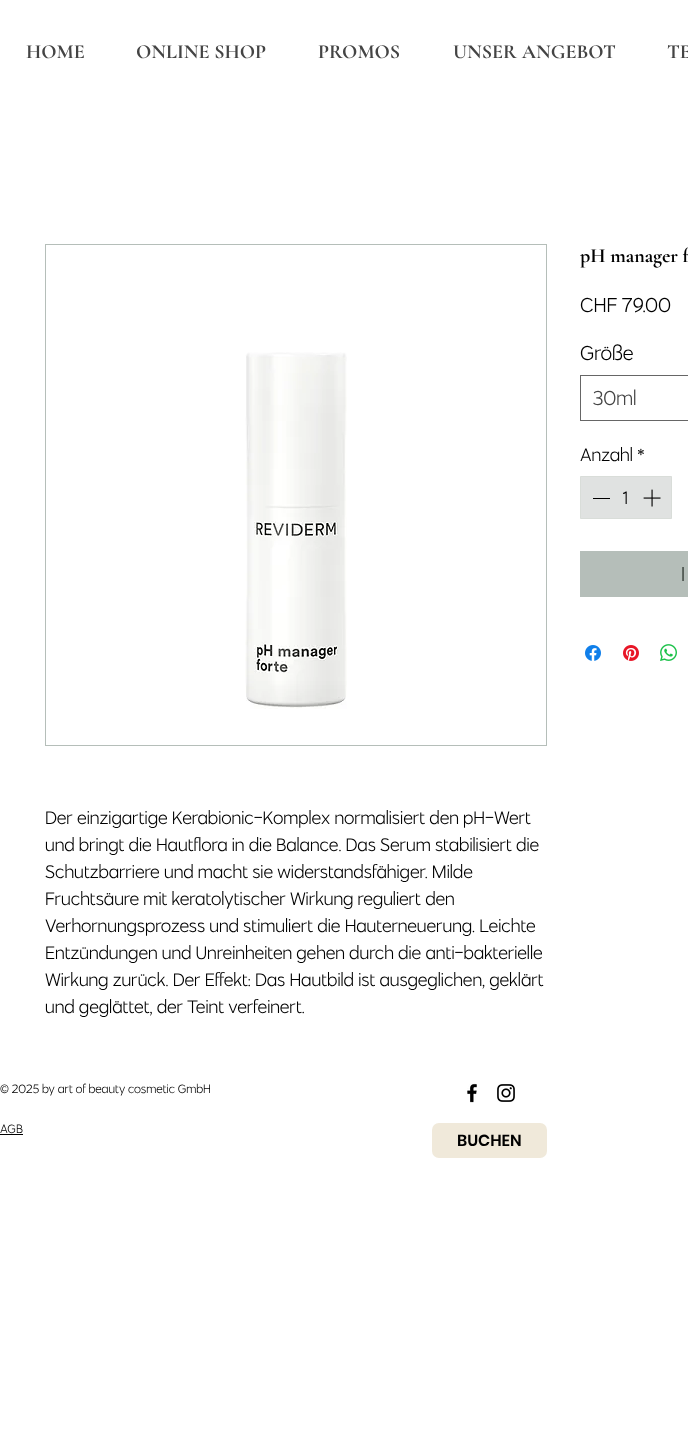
async function draw(canvas) {
	canvas.width = 688;
	canvas.height = 1432;
	const c = canvas.getContext('2d');
	c.miterLimit = 4;
	c.fontKerning = 'normal';
	async function loadImage(src) {
		const img = new Image();
		img.src = src;
		await img.decode();
		return img;
	}

	c.fillStyle = '#fff';
	c.fillRect(0, 0, 688, 1432);
	c.font = 'bold 20px Cormorant Garamond';
	c.fillStyle = '#444';
	for (const [text, x, y] of [
		['HOME', 26, 58],
		['ONLINE SHOP', 136, 58],
		['PROMOS', 318, 58],
		['UNSER ANGEBOT', 453, 58],
		['TE', 667, 58],
	]) {
		c.fillText(text, x, y);
	}
	c.fillStyle = '#000';
	c.fillText('pH manager f', 580, 262);
	c.font = '20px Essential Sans';
	c.fillText('CHF 79.00', 580, 312);
	c.fillText('Größe', 580, 360);
	c.strokeStyle = '#666';
	c.strokeRect(580.5, 375.5, 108, 45);
	c.fillStyle = '#444';
	c.fillText('30ml', 593, 405);
	c.font = '18px Essential Sans';
	c.fillStyle = '#000';
	c.fillText('Anzahl *', 580, 461);
	c.fillStyle = '#e0e2e1';
	c.beginPath();
	c.rect(580.5, 476.5, 91, 42);
	c.fill();
	c.strokeStyle = '#d9ddd9';
	c.stroke();
	c.fillStyle = '#000';
	c.fillRect(593, 498, 17, 1);
	c.fillText('1', 623, 504);
	c.drawImage(await loadImage('img1.png'), 643, 489, 18, 18);
	c.fillStyle = '#b5beb9';
	c.fillRect(580, 551, 108, 46);
	c.font = '20px Essential Sans';
	c.fillStyle = '#252d27';
	c.fillText('I', 681, 581);
	c.drawImage(await loadImage('img2.png'), 585, 645, 16, 16);
	c.drawImage(await loadImage('img3.png'), 623, 645, 16, 16);
	c.drawImage(await loadImage('img4.png'), 660, 644, 17, 17);
	c.strokeStyle = '#b5beb9';
	c.strokeRect(45.5, 244.5, 501, 501);
	c.drawImage(await loadImage('img5.png'), 245, 352, 102, 357);
	c.font = '18px Essential Sans';
	c.fillStyle = '#000';
	for (const [text, x, y] of [
		['Der einzigartige Kerabionic-Komplex normalisiert den pH-Wert', 45, 824],
		['und bringt die Hautflora in die Balance. Das Serum stabilisiert die', 45, 851],
		['Schutzbarriere und macht sie widerstandsfähiger. Milde', 45, 878],
		['Fruchtsäure mit keratolytischer Wirkung reguliert den', 45, 905],
		['Verhornungsprozess und stimuliert die Hauterneuerung. Leichte', 45, 932],
		['Entzündungen und Unreinheiten gehen durch die anti-bakterielle', 45, 959],
		['Wirkung zurück. Der Effekt: Das Hautbild ist ausgeglichen, geklärt', 45, 986],
		['und geglättet, der Teint verfeinert.', 45, 1013],
	]) {
		c.fillText(text, x, y);
	}
	c.font = '12px Essential Sans';
	c.fillText('© 2025 by art of beauty cosmetic GmbH', 0, 1093);
	c.drawImage(await loadImage('img6.png'), 467, 1083, 10, 20);
	c.drawImage(await loadImage('img7.png'), 497, 1084, 18, 18);
	c.fillText('AGB', 0, 1133);
	c.fillRect(0, 1134, 23, 1);
	c.fillStyle = '#f0e9da';
	c.beginPath();
	c.roundRect(432, 1123, 115, 35, 7);
	c.fill();
	c.font = '600 16px Poppins';
	c.fillStyle = '#000';
	c.fillText('BUCHEN', 457, 1146);
}

draw(document.querySelector('canvas'));
